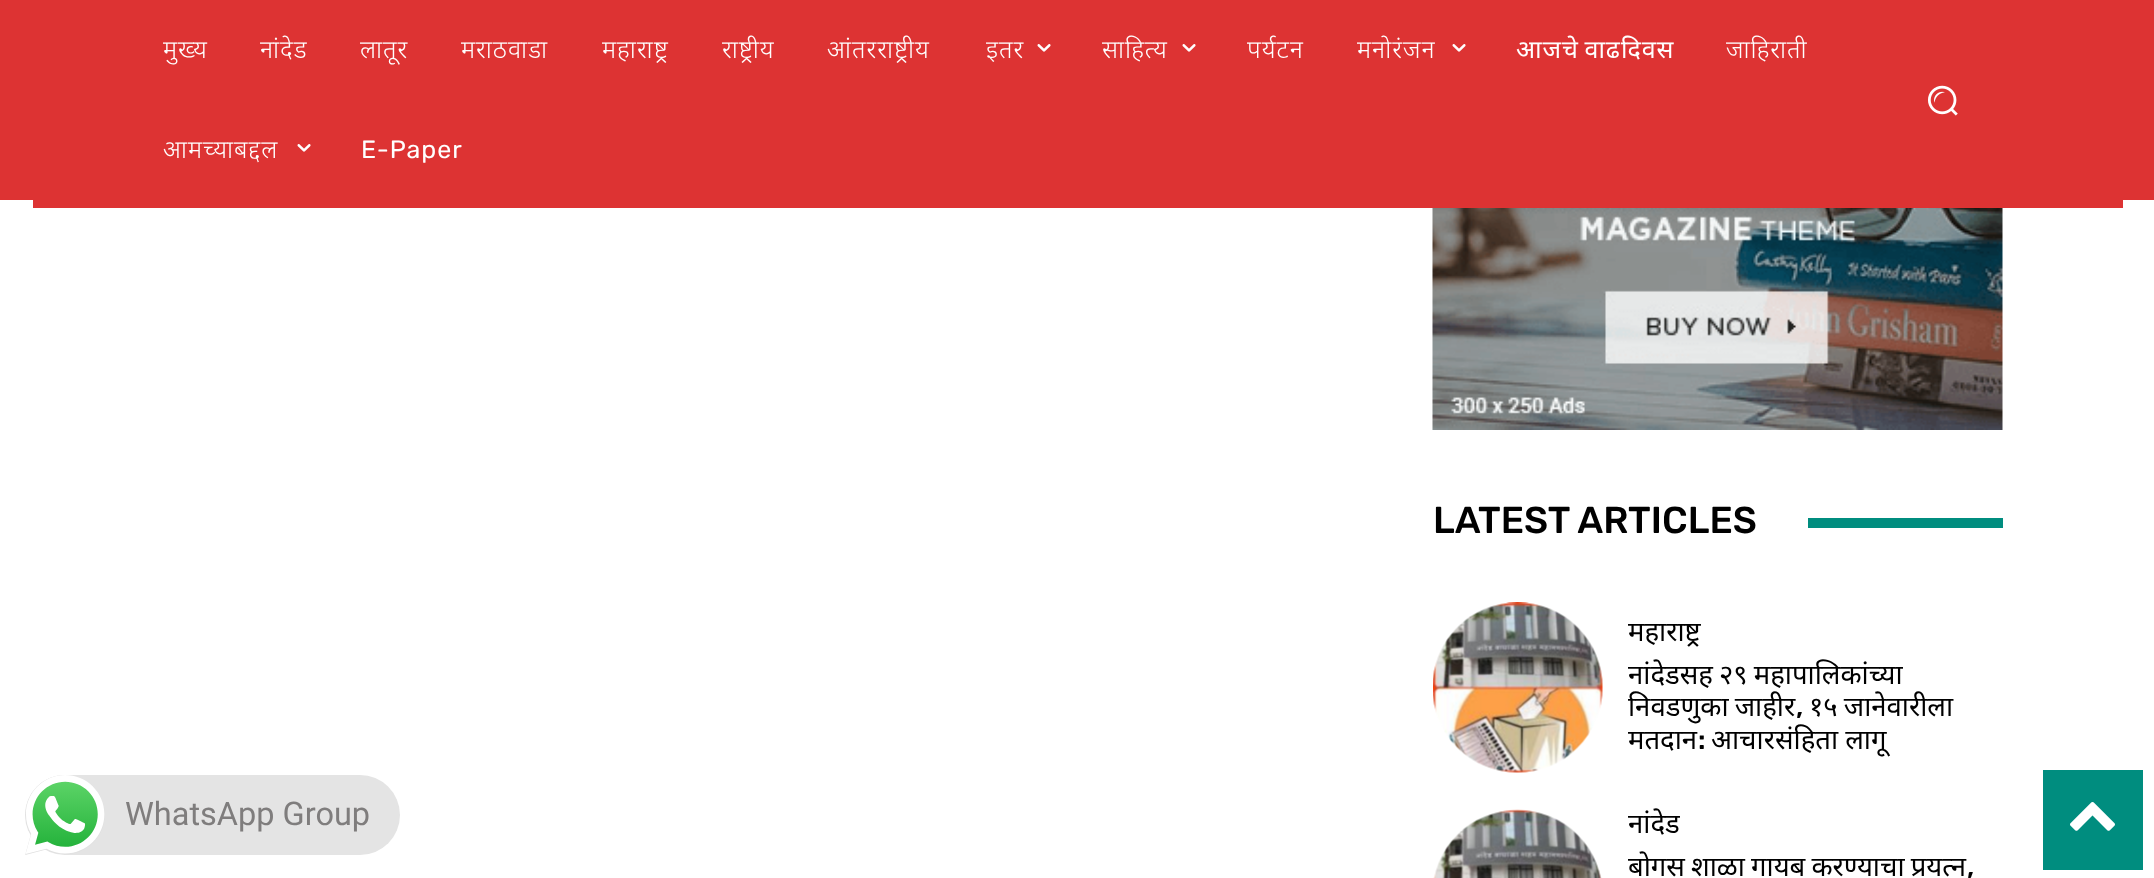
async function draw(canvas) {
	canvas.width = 2154;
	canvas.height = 878;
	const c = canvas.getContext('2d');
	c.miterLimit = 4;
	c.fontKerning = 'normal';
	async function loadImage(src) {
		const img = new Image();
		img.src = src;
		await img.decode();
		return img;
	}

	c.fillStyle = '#fff';
	c.fillRect(0, 0, 2154, 878);
	c.fillStyle = '#d33';
	c.fillRect(0, 0, 2154, 200);
	c.letterSpacing = '1px';
	c.font = '300 25px Noto Sans';
	c.fillStyle = '#fff';
	for (const [text, x, y] of [
		['मुख्य', 163, 58],
		['नांदेड', 260, 58],
		['लातूर', 360, 58],
		['मराठवाडा', 461, 58],
		['महाराष्ट्र', 602, 58],
		['राष्ट्रीय', 722, 58],
		['आंतरराष्ट्रीय', 827, 58],
		['इतर', 986, 58],
	]) {
		c.fillText(text, x, y);
	}
	c.drawImage(await loadImage('img1.png'), 1037, 44, 14, 8);
	c.fillText('साहित्य', 1102, 58);
	c.drawImage(await loadImage('img1.png'), 1182, 44, 14, 8);
	c.fillText('पर्यटन', 1247, 58);
	c.fillText('मनोरंजन', 1357, 58);
	c.drawImage(await loadImage('img1.png'), 1452, 44, 14, 8);
	c.wordSpacing = '-2px';
	c.font = '25px Noto Sans';
	c.fillText('आजचे वाढदिवस', 1516, 58);
	c.wordSpacing = '0px';
	c.font = '300 25px Noto Sans';
	c.fillText('जाहिराती', 1726, 58);
	c.fillText('आमच्याबद्दल', 163, 158);
	c.drawImage(await loadImage('img1.png'), 297, 144, 14, 8);
	c.font = '25px Rubik';
	c.fillText('E-Paper', 361, 158);
	c.drawImage(await loadImage('img2.png'), 1928, 85, 30, 31);
	c.fillStyle = '#d33';
	c.fillRect(33, 200, 2090, 8);
	c.fillStyle = '#e4e4e4';
	c.beginPath();
	c.roundRect(25, 775, 375, 80, 40);
	c.fill();
	c.drawImage(await loadImage('img3.png'), 25, 775, 80, 80);
	c.letterSpacing = '0px';
	c.font = '32.5px Roboto';
	c.fillStyle = '#7f7d7d';
	c.fillText('WhatsApp Group', 125, 825);
	c.drawImage(await loadImage('img4.png'), 1432, 208, 571, 222);
	c.font = '500 37.5px Rubik';
	c.fillStyle = '#000';
	c.fillText('LATEST ARTICLES', 1433, 533);
	c.fillStyle = '#008d7f';
	c.fillRect(1808, 518, 195, 10);
	c.drawImage(await loadImage('img5.png'), 1433, 602, 170, 171);
	c.font = '27.5px Noto Sans';
	c.fillStyle = '#000';
	c.fillText('महाराष्ट्र', 1628, 641);
	c.wordSpacing = '-1px';
	c.fillText('नांदेडसह २९ महापालिकांच्या', 1628, 684);
	c.fillText('निवडणुका जाहीर', 1628, 716);
	c.wordSpacing = '0px';
	c.font = '500 27.5px Rubik';
	c.fillText(',', 1796, 716);
	c.wordSpacing = '-1px';
	c.font = '27.5px Noto Sans';
	c.fillText('१५ जानेवारीला', 1809, 716);
	c.wordSpacing = '0px';
	c.fillText('मतदान', 1628, 749);
	c.font = '500 27.5px Rubik';
	c.fillText(':', 1698, 749);
	c.font = '27.5px Noto Sans';
	c.fillText('आचारसंहिता लागू', 1711, 749);
	c.drawImage(await loadImage('img6.png'), 1433, 809, 169, 69);
	c.fillText('नांदेड', 1628, 833);
	c.wordSpacing = '-1px';
	c.fillText('बोगस शाळा गायब करण्याचा प्रयत्न', 1628, 876);
	c.wordSpacing = '0px';
	c.font = '500 27.5px Rubik';
	c.fillText(',', 1967, 876);
	c.fillStyle = '#008d7f';
	c.fillRect(2043, 770, 100, 100);
	c.drawImage(await loadImage('img7.png'), 2070, 802, 45, 29);
}

draw(document.querySelector('canvas'));
